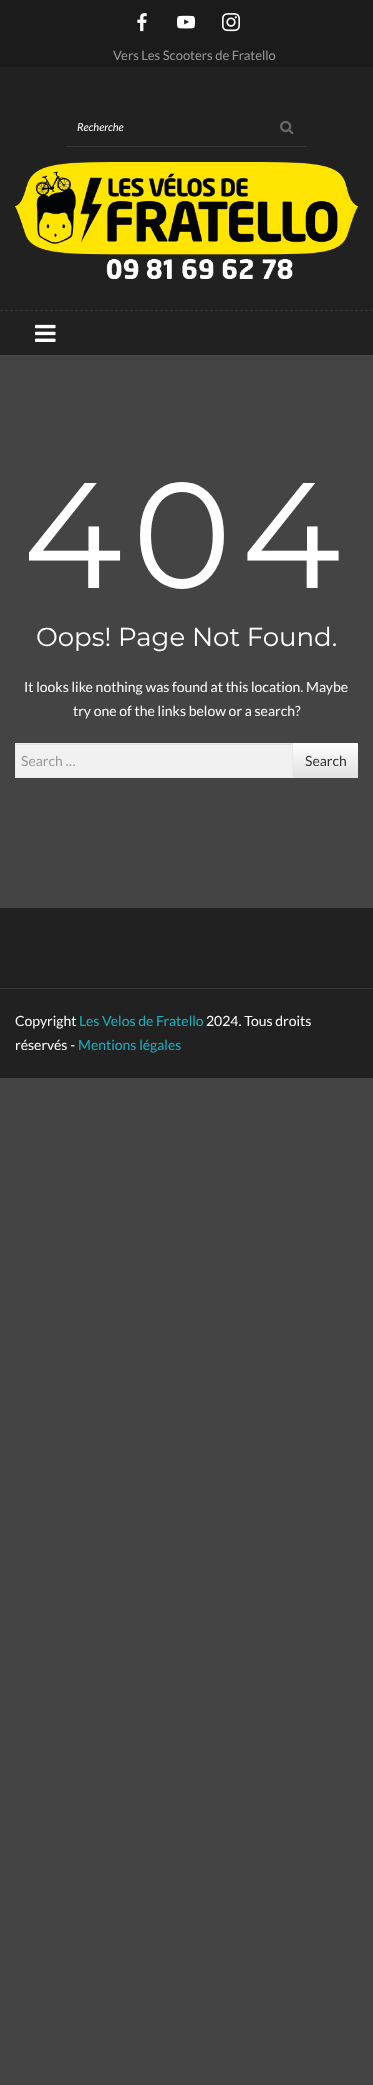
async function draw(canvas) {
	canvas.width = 373;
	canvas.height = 2085;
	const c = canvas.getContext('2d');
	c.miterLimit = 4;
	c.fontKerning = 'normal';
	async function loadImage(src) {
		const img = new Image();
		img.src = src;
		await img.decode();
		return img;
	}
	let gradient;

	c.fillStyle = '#444';
	c.fillRect(0, 0, 373, 2085);
	c.fillStyle = '#1b1b1b';
	c.fillRect(0, 0, 373, 67);
	c.drawImage(await loadImage('img1.png'), 137, 13, 10, 19);
	c.drawImage(await loadImage('img2.png'), 177, 15, 18, 14);
	c.drawImage(await loadImage('img3.png'), 222, 13, 18, 19);
	c.font = '13px Lato';
	c.fillStyle = '#999';
	c.fillText('Vers Les Scooters de Fratello', 113, 60);
	c.fillStyle = '#222121';
	c.fillRect(0, 67, 373, 288);
	c.fillStyle = '#383838';
	c.fillRect(67, 146, 240, 1);
	c.font = 'italic 11px Lato';
	c.fillStyle = '#fff';
	c.fillText('Recherche', 77, 131);
	c.drawImage(await loadImage('img4.png'), 280, 120, 14, 15);
	c.drawImage(await loadImage('img5.png'), 15, 162, 343, 117);
	c.beginPath();
	c.moveTo(0, 310.5);
	c.lineTo(373, 310.5);
	c.strokeStyle = '#363636';
	c.setLineDash([3, 2]);
	c.stroke();
	c.drawImage(await loadImage('img6.png'), 35, 324, 21, 18);
	c.letterSpacing = '10px';
	c.font = '150px Montserrat';
	c.fillText('404', 23, 588);
	c.letterSpacing = '0px';
	c.font = '26px Montserrat';
	c.fillText('Oops! Page Not Found.', 36, 646);
	c.font = '14px Lato';
	c.fillText('It looks like nothing was found at this location. Maybe', 24, 692);
	c.fillText('try one of the links below or a search?', 73, 716);
	c.fillStyle = '#f1f1f1';
	c.fillRect(16, 745, 276, 32);
	c.fillStyle = '#dfdfdf';
	c.fillRect(16, 744, 276, 1);
	c.strokeStyle = '#ebebeb';
	c.setLineDash([]);
	c.strokeRect(15.5, 743.5, 277, 34);
	c.fillStyle = '#999';
	c.fillText('Search …', 21, 766);
	gradient = c.createLinearGradient(326, 743, 326, 778);
	gradient.addColorStop(0, '#fff');
	gradient.addColorStop(1, '#e0e0e0');
	c.fillStyle = gradient;
	c.fillRect(293, 743, 65, 35);
	c.fillStyle = '#333';
	c.fillText('Search', 305, 766);
	c.fillStyle = '#222121';
	c.fillRect(0, 908, 373, 170);
	c.fillStyle = '#393939';
	c.fillRect(0, 988, 373, 1);
	c.fillStyle = '#fff';
	c.fillText('Copyright', 15, 1026);
	c.fillStyle = '#1bb2c0';
	c.fillText('Les Velos de Fratello', 79, 1026);
	c.fillStyle = '#fff';
	c.fillText('2024. Tous droits', 206, 1026);
	c.fillText('réservés -', 15, 1050);
	c.fillStyle = '#1bb2c0';
	c.fillText('Mentions légales', 78, 1050);
}

draw(document.querySelector('canvas'));
